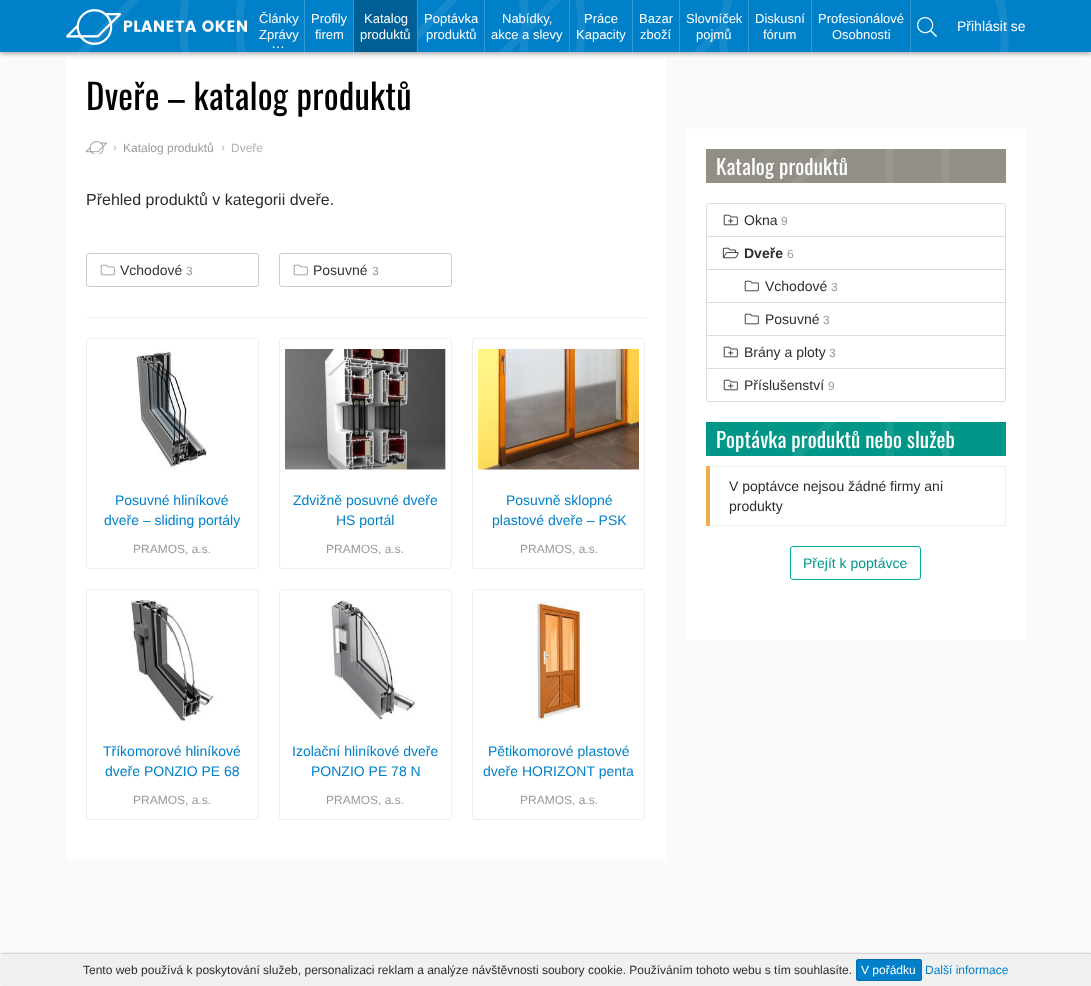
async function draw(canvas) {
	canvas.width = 1091;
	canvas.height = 986;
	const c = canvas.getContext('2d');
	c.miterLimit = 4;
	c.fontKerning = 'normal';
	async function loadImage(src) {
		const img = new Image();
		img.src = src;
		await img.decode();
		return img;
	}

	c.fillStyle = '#fafafa';
	c.fillRect(0, 0, 1091, 986);
	c.fillStyle = '#fff';
	c.fillRect(66, 59, 600, 801);
	c.fillStyle = '#0000004d';
	c.filter = 'blur(2px)';
	c.beginPath();
	c.rect(0, 2, 1091, 52);
	c.fill();
	c.filter = 'none';
	c.fillStyle = '#0080c9';
	c.fillRect(0, 0, 1091, 52);
	c.drawImage(await loadImage('img1.png'), 77, 0, 932, 52);
	c.drawImage(await loadImage('img2.png'), 66, 9, 181, 36);
	c.font = '13px Liberation Sans';
	c.fillStyle = '#fff';
	c.fillText('Články', 259, 23);
	c.fillText('Zprávy', 259, 39);
	c.font = '14px Liberation Sans';
	c.fillText('…', 271, 48);
	c.fillStyle = '#3299d3';
	c.fillRect(304, 0, 1, 52);
	c.font = '13px Liberation Sans';
	c.fillStyle = '#fff';
	c.fillText('Profily', 311, 23);
	c.fillText('firem', 315, 39);
	c.fillStyle = '#006096';
	c.fillRect(354, 0, 63, 52);
	c.fillStyle = '#3299d3';
	c.fillRect(353, 0, 1, 52);
	c.fillStyle = '#fff';
	c.fillText('Katalog', 364, 23);
	c.fillText('produktů', 360, 39);
	c.fillStyle = '#3299d3';
	c.fillRect(417, 0, 1, 52);
	c.fillStyle = '#fff';
	c.fillText('Poptávka', 424, 23);
	c.fillText('produktů', 426, 39);
	c.fillStyle = '#3299d3';
	c.fillRect(484, 0, 1, 52);
	c.fillStyle = '#fff';
	c.fillText('Nabídky,', 502, 23);
	c.fillText('akce a slevy', 491, 39);
	c.fillStyle = '#3299d3';
	c.fillRect(569, 0, 1, 52);
	c.fillStyle = '#fff';
	c.fillText('Práce', 584, 23);
	c.fillText('Kapacity', 576, 39);
	c.fillStyle = '#3299d3';
	c.fillRect(632, 0, 1, 52);
	c.fillStyle = '#fff';
	c.fillText('Bazar', 639, 23);
	c.fillText('zboží', 640, 39);
	c.fillStyle = '#3299d3';
	c.fillRect(679, 0, 1, 52);
	c.fillStyle = '#fff';
	c.fillText('Slovníček', 686, 23);
	c.fillText('pojmů', 696, 39);
	c.fillStyle = '#3299d3';
	c.fillRect(748, 0, 1, 52);
	c.fillStyle = '#fff';
	c.fillText('Diskusní', 755, 23);
	c.fillText('fórum', 763, 39);
	c.fillStyle = '#3299d3';
	c.fillRect(811, 0, 1, 52);
	c.fillStyle = '#fff';
	c.fillText('Profesionálové', 818, 23);
	c.fillText('Osobnosti', 832, 39);
	c.fillStyle = '#3299d3';
	c.fillRect(910, 0, 1, 52);
	c.drawImage(await loadImage('img3.png'), 917, 17, 20, 20);
	c.font = '14px Liberation Sans';
	c.fillStyle = '#fff';
	c.fillText('Přihlásit se', 957, 31);
	c.letterSpacing = '0.2px';
	c.font = '35px Oswald';
	c.fillStyle = '#000';
	c.fillText('Dveře – katalog produktů', 86, 110);
	c.drawImage(await loadImage('img4.png'), 86, 141, 21, 13);
	c.letterSpacing = '0px';
	c.font = '12px Liberation Sans';
	c.fillStyle = '#b3b3b3';
	c.fillText('›', 113, 151);
	c.fillStyle = '#999';
	c.fillText('Katalog produktů', 123, 152);
	c.fillStyle = '#b3b3b3';
	c.fillText('›', 221, 151);
	c.fillText('Dveře', 231, 152);
	c.font = '16px Liberation Sans';
	c.fillStyle = '#2a2e2e';
	c.fillText('Přehled produktů v kategorii dveře.', 86, 205);
	c.beginPath();
	c.roundRect(86.5, 253.5, 172, 33, 2.5);
	c.strokeStyle = '#ccc';
	c.stroke();
	c.drawImage(await loadImage('img5.png'), 100, 264, 15, 12);
	c.font = '14px Liberation Sans';
	c.fillStyle = '#333';
	c.fillText('Vchodové', 120, 275);
	c.font = '12px Liberation Sans';
	c.fillStyle = '#999';
	c.fillText('3', 186, 275);
	c.beginPath();
	c.roundRect(279.5, 253.5, 172, 33, 2.5);
	c.stroke();
	c.drawImage(await loadImage('img5.png'), 293, 264, 15, 12);
	c.font = '14px Liberation Sans';
	c.fillStyle = '#333';
	c.fillText('Posuvné', 313, 275);
	c.font = '12px Liberation Sans';
	c.fillStyle = '#999';
	c.fillText('3', 372, 275);
	c.fillStyle = '#eee';
	c.fillRect(86, 317, 560, 1);
	c.beginPath();
	c.roundRect(86.5, 338.5, 172, 230, 2.5);
	c.strokeStyle = '#eee';
	c.stroke();
	c.drawImage(await loadImage('img6.png'), 136, 349, 71, 120);
	c.font = '14px Liberation Sans';
	c.fillStyle = '#0080c9';
	c.fillText('Posuvné hliníkové', 115, 505);
	c.fillText('dveře – sliding portály', 104, 525);
	c.font = '12px Liberation Sans';
	c.fillStyle = '#999';
	c.fillText('PRAMOS, a.s.', 133, 553);
	c.beginPath();
	c.roundRect(279.5, 338.5, 172, 230, 2.5);
	c.stroke();
	c.drawImage(await loadImage('img7.png'), 285, 349, 161, 121);
	c.font = '14px Liberation Sans';
	c.fillStyle = '#0080c9';
	c.fillText('Zdvižně posuvné dveře', 293, 505);
	c.fillText('HS portál', 336, 525);
	c.font = '12px Liberation Sans';
	c.fillStyle = '#999';
	c.fillText('PRAMOS, a.s.', 326, 553);
	c.beginPath();
	c.roundRect(472.5, 338.5, 172, 230, 2.5);
	c.stroke();
	c.drawImage(await loadImage('img8.png'), 478, 349, 161, 121);
	c.font = '14px Liberation Sans';
	c.fillStyle = '#0080c9';
	c.fillText('Posuvně sklopné', 506, 505);
	c.fillText('plastové dveře – PSK', 492, 525);
	c.font = '12px Liberation Sans';
	c.fillStyle = '#999';
	c.fillText('PRAMOS, a.s.', 520, 553);
	c.beginPath();
	c.roundRect(86.5, 589.5, 172, 230, 2.5);
	c.stroke();
	c.drawImage(await loadImage('img9.png'), 130, 600, 87, 121);
	c.font = '14px Liberation Sans';
	c.fillStyle = '#0080c9';
	c.fillText('Tříkomorové hliníkové', 103, 756);
	c.fillText('dveře PONZIO PE 68', 105, 776);
	c.font = '12px Liberation Sans';
	c.fillStyle = '#999';
	c.fillText('PRAMOS, a.s.', 133, 804);
	c.beginPath();
	c.roundRect(279.5, 589.5, 172, 230, 2.5);
	c.stroke();
	c.drawImage(await loadImage('img10.png'), 330, 600, 85, 120);
	c.font = '14px Liberation Sans';
	c.fillStyle = '#0080c9';
	c.fillText('Izolační hliníkové dveře', 292, 756);
	c.fillText('PONZIO PE 78 N', 311, 776);
	c.font = '12px Liberation Sans';
	c.fillStyle = '#999';
	c.fillText('PRAMOS, a.s.', 326, 804);
	c.beginPath();
	c.roundRect(472.5, 589.5, 172, 230, 2.5);
	c.stroke();
	c.drawImage(await loadImage('img11.png'), 534, 600, 55, 121);
	c.font = '14px Liberation Sans';
	c.fillStyle = '#0080c9';
	c.fillText('Pětikomorové plastové', 488, 756);
	c.fillText('dveře HORIZONT penta', 483, 776);
	c.font = '12px Liberation Sans';
	c.fillStyle = '#999';
	c.fillText('PRAMOS, a.s.', 520, 804);
	c.fillStyle = '#fff';
	c.fillRect(686, 129, 340, 511);
	c.fillStyle = '#928f87';
	c.fillRect(706, 149, 300, 34);
	c.drawImage(await loadImage('img12.png'), 792, 149, 158, 34);
	c.letterSpacing = '0.1px';
	c.font = '21px Oswald';
	c.fillStyle = '#fff';
	c.fillText('Katalog produktů', 716, 175);
	c.beginPath();
	c.roundRect(706.5, 203.5, 299, 33, [2.5, 2.5, 0, 0]);
	c.strokeStyle = '#ddd';
	c.stroke();
	c.drawImage(await loadImage('img13.png'), 723, 214, 15, 12);
	c.letterSpacing = '0px';
	c.font = '14px Liberation Sans';
	c.fillStyle = '#2a2e2e';
	c.fillText('Okna', 744, 225);
	c.font = '12px Liberation Sans';
	c.fillStyle = '#999';
	c.fillText('9', 781, 225);
	c.strokeRect(706.5, 236.5, 299, 33);
	c.drawImage(await loadImage('img14.png'), 722, 247, 17, 12);
	c.font = 'bold 14px Liberation Sans';
	c.fillStyle = '#2a2e2e';
	c.fillText('Dveře', 744, 258);
	c.font = '12px Liberation Sans';
	c.fillStyle = '#999';
	c.fillText('6', 787, 258);
	c.strokeRect(706.5, 269.5, 299, 33);
	c.drawImage(await loadImage('img15.png'), 744, 280, 15, 12);
	c.font = '14px Liberation Sans';
	c.fillStyle = '#2a2e2e';
	c.fillText('Vchodové', 765, 291);
	c.font = '12px Liberation Sans';
	c.fillStyle = '#999';
	c.fillText('3', 831, 291);
	c.strokeRect(706.5, 302.5, 299, 33);
	c.drawImage(await loadImage('img15.png'), 744, 313, 15, 12);
	c.font = '14px Liberation Sans';
	c.fillStyle = '#2a2e2e';
	c.fillText('Posuvné', 765, 324);
	c.font = '12px Liberation Sans';
	c.fillStyle = '#999';
	c.fillText('3', 823, 324);
	c.strokeRect(706.5, 335.5, 299, 33);
	c.drawImage(await loadImage('img13.png'), 723, 346, 15, 12);
	c.font = '14px Liberation Sans';
	c.fillStyle = '#2a2e2e';
	c.fillText('Brány a ploty', 744, 357);
	c.font = '12px Liberation Sans';
	c.fillStyle = '#999';
	c.fillText('3', 829, 357);
	c.fillStyle = '#fff';
	c.beginPath();
	c.roundRect(706.5, 368.5, 299, 33, [0, 0, 2.5, 2.5]);
	c.fill();
	c.stroke();
	c.drawImage(await loadImage('img13.png'), 723, 379, 15, 12);
	c.font = '14px Liberation Sans';
	c.fillStyle = '#2a2e2e';
	c.fillText('Příslušenství', 744, 390);
	c.font = '12px Liberation Sans';
	c.fillStyle = '#999';
	c.fillText('9', 828, 390);
	c.fillStyle = '#009688';
	c.fillRect(706, 422, 300, 34);
	c.drawImage(await loadImage('img16.png'), 792, 422, 159, 34);
	c.letterSpacing = '0.1px';
	c.font = '21px Oswald';
	c.fillStyle = '#fff';
	c.fillText('Poptávka produktů nebo služeb', 716, 448);
	c.strokeStyle = '#eee';
	c.strokeRect(706.5, 466.5, 299, 59);
	c.fillStyle = '#f0ad4e';
	c.fillRect(706, 466, 4, 60);
	c.letterSpacing = '0px';
	c.font = '14px Liberation Sans';
	c.fillStyle = '#2a2e2e';
	c.fillText('V poptávce nejsou žádné firmy ani', 729, 491);
	c.fillText('produkty', 729, 511);
	c.beginPath();
	c.roundRect(790.5, 546.5, 130, 33, 2.5);
	c.strokeStyle = '#00b09f';
	c.stroke();
	c.fillStyle = '#009688';
	c.fillText('Přejít k poptávce', 803, 568);
	c.fillStyle = '#0c0d0e1a';
	c.filter = 'blur(1.5px)';
	c.beginPath();
	c.rect(1, 953, 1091, 32);
	c.fill();
	c.filter = 'none';
	c.beginPath();
	c.moveTo(1, 953);
	c.lineTo(1, 954);
	c.lineTo(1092, 954);
	c.lineTo(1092, 985);
	c.lineTo(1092, 953);
	c.closePath();
	c.fill();
	c.fillStyle = '#f0f0f0';
	c.fillRect(1, 954, 1090, 32);
	c.font = '12px Liberation Sans';
	c.fillStyle = '#2a2e2e';
	c.fillText('Tento web používá k poskytování služeb, personalizaci reklam a analýze návštěvnosti soubory cookie. Používáním tohoto webu s tím souhlasíte.', 83, 974);
	c.fillStyle = '#0080c9';
	c.beginPath();
	c.roundRect(856.5, 959.5, 65, 21, 1.5);
	c.fill();
	c.strokeStyle = '#0070b0';
	c.stroke();
	c.fillStyle = '#fff';
	c.fillText('V pořádku', 861, 974);
	c.fillStyle = '#0080c9';
	c.fillText('Další informace', 925, 974);
}

draw(document.querySelector('canvas'));
